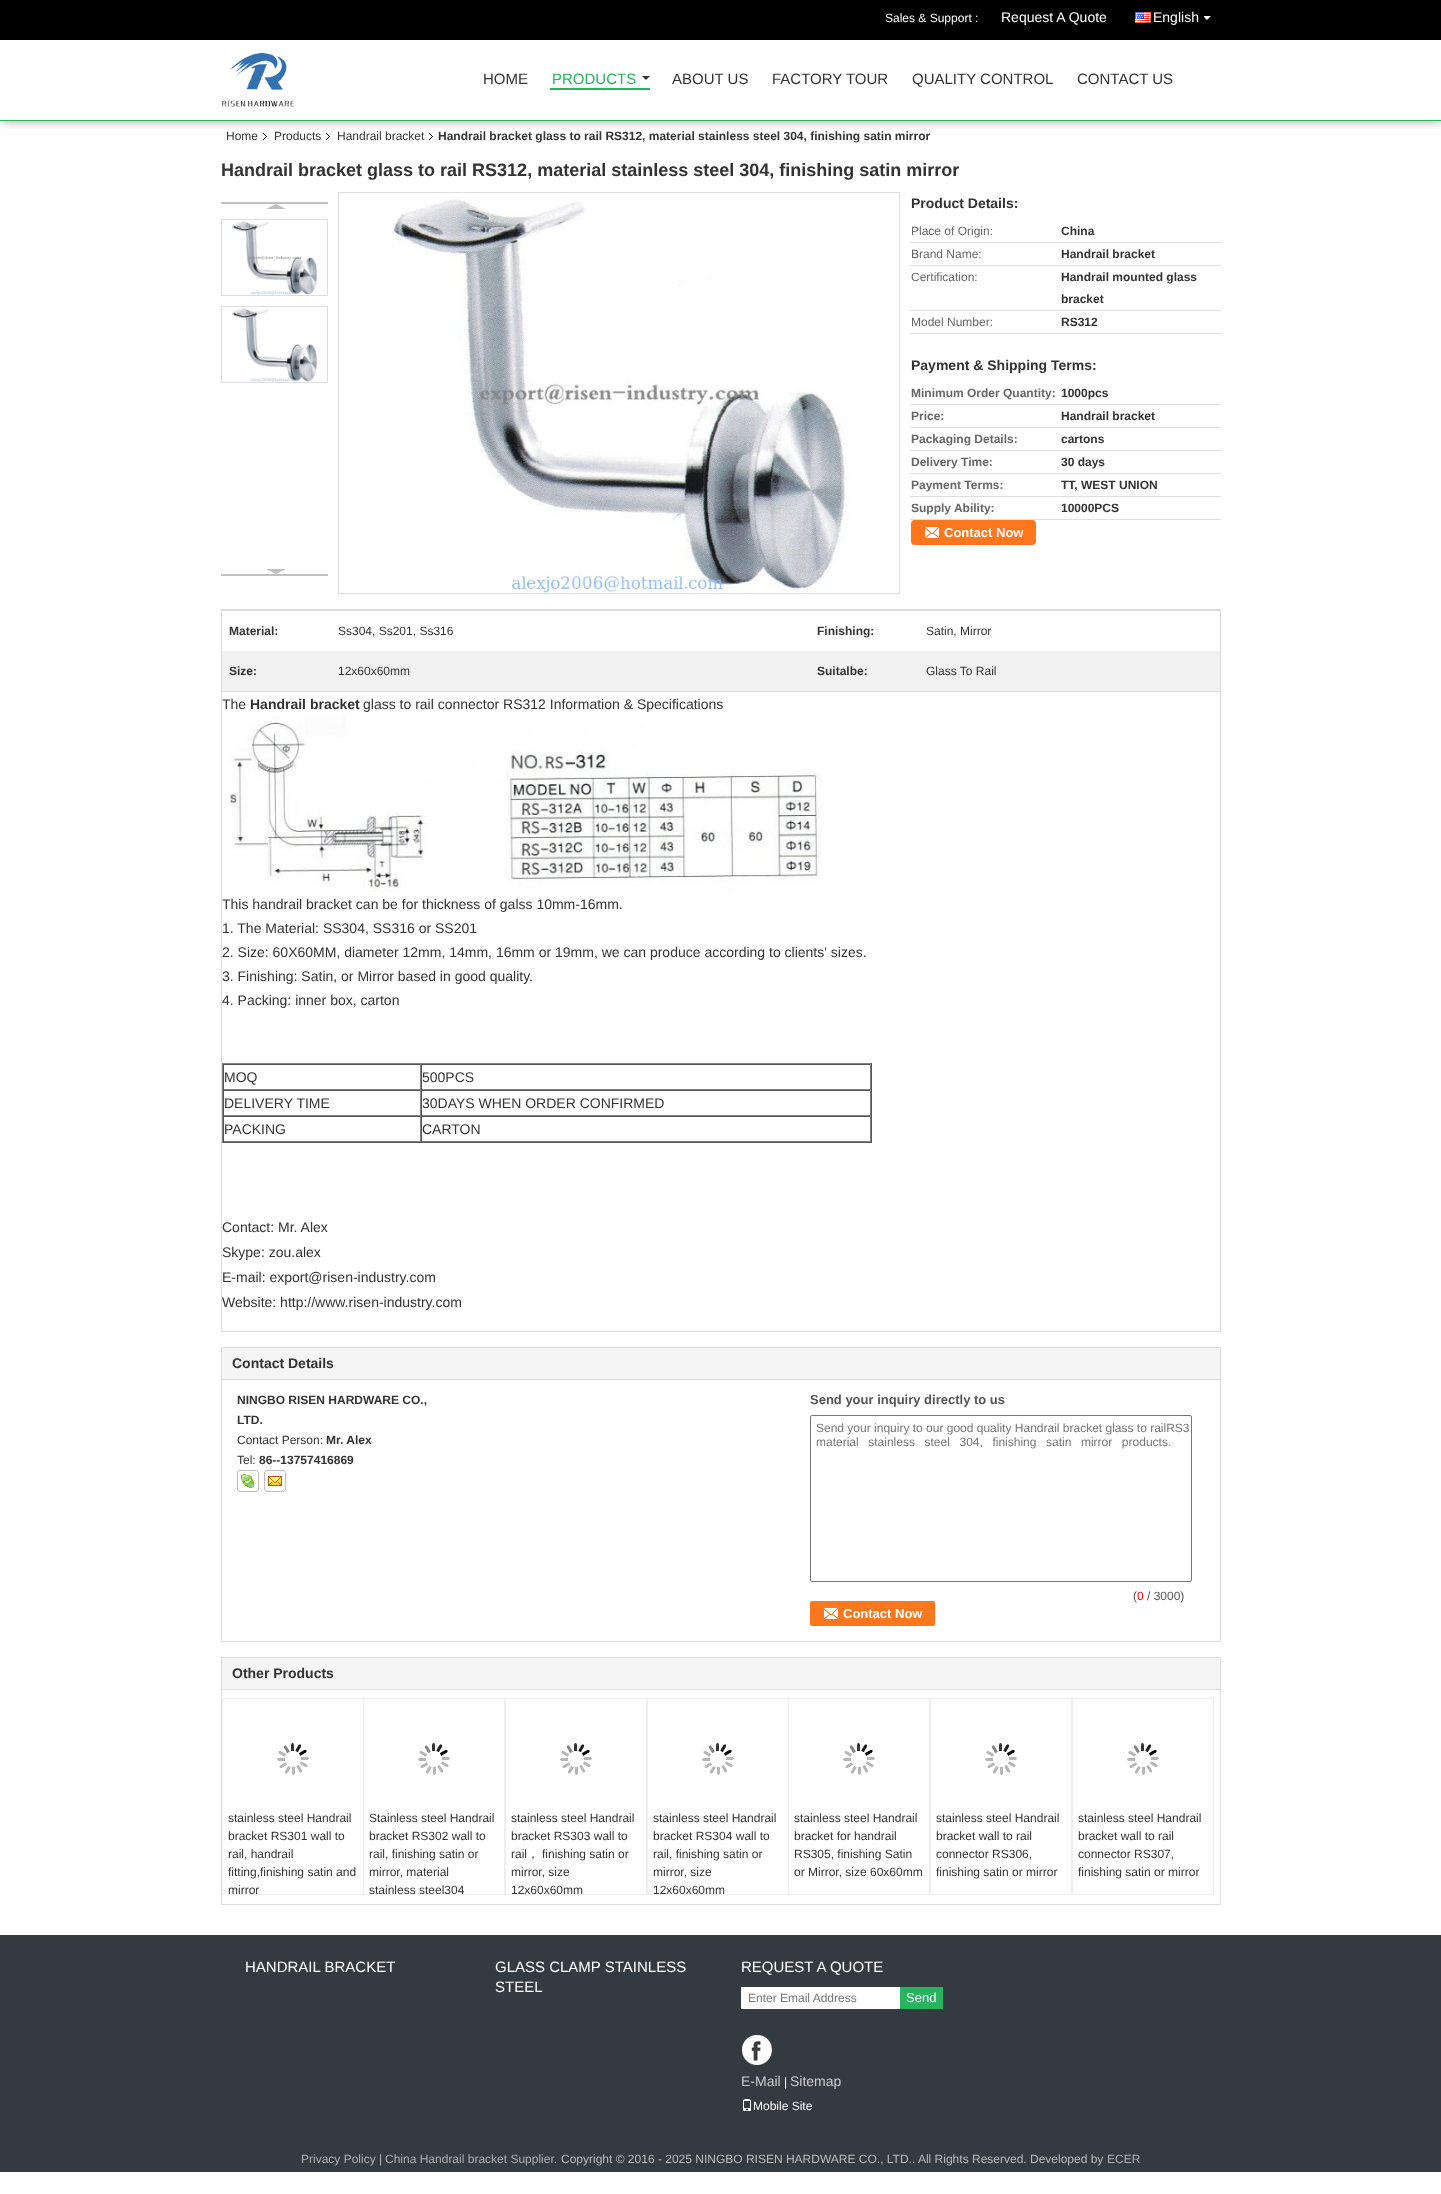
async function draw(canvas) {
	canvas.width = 1441;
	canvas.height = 2194;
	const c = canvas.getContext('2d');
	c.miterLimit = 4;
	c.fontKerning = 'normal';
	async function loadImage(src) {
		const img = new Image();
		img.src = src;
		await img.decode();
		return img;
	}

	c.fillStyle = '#fff';
	c.fillRect(0, 0, 1441, 2194);
	c.save();
	c.beginPath();
	c.rect(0, 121, 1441, 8);
	c.clip();
	c.fillStyle = '#0000004d';
	c.filter = 'blur(5px)';
	c.beginPath();
	c.rect(1, 1, 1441, 121);
	c.fill();
	c.filter = 'none';
	c.restore();
	c.fillStyle = '#27b45f';
	c.fillRect(0, 120, 1441, 1);
	c.fillStyle = '#000';
	c.fillRect(0, 0, 1441, 40);
	c.font = '12px Liberation Sans';
	c.fillStyle = '#fff';
	c.fillText('Sales & Support :', 885, 22);
	c.font = '14px Liberation Sans';
	c.fillText('Request A Quote', 1001, 22);
	c.drawImage(await loadImage('img1.png'), 1135, 12, 16, 11);
	c.fillText('English', 1153, 22);
	c.drawImage(await loadImage('img2.png'), 1204, 16, 7, 4);
	c.drawImage(await loadImage('img3.png'), 221, 52, 74, 55);
	c.font = '15px Liberation Sans';
	c.fillStyle = '#333';
	c.fillText('HOME', 483, 84);
	c.fillStyle = '#27b45f';
	c.fillRect(550, 88, 100, 2);
	c.fillText('PRODUCTS', 552, 84);
	c.fillStyle = '#333';
	c.beginPath();
	c.moveTo(642, 76);
	c.lineTo(650, 76);
	c.lineTo(646, 80);
	c.closePath();
	c.fill();
	for (const [text, x, y] of [
		['ABOUT US', 672, 84],
		['FACTORY TOUR', 772, 84],
		['QUALITY CONTROL', 912, 84],
		['CONTACT US', 1077, 84],
	]) {
		c.fillText(text, x, y);
	}
	c.font = '12px Liberation Sans';
	c.fillText('Home', 226, 140);
	c.drawImage(await loadImage('img4.png'), 263, 133, 4, 7);
	c.fillText('Products', 274, 140);
	c.drawImage(await loadImage('img4.png'), 326, 133, 4, 7);
	c.fillText('Handrail bracket', 337, 140);
	c.drawImage(await loadImage('img4.png'), 429, 133, 4, 7);
	c.font = 'bold 12px Liberation Sans';
	c.fillText('Handrail bracket glass to rail RS312, material stainless steel 304, finishing satin mirror', 438, 140);
	c.font = 'bold 18px Liberation Sans';
	c.fillText('Handrail bracket glass to rail RS312, material stainless steel 304, finishing satin mirror', 221, 176);
	c.fillStyle = '#c0c0c0';
	c.fillRect(221, 202, 107, 2);
	c.beginPath();
	c.moveTo(286, 209);
	c.lineTo(266, 209);
	c.lineTo(276, 204);
	c.closePath();
	c.fill();
	c.strokeStyle = '#dedede';
	c.strokeRect(221.5, 219.5, 106, 76);
	c.drawImage(await loadImage('img5.png'), 232, 221, 86, 74);
	c.strokeRect(221.5, 306.5, 106, 76);
	c.drawImage(await loadImage('img6.png'), 232, 308, 86, 74);
	c.fillRect(221, 574, 107, 2);
	c.beginPath();
	c.moveTo(266, 569);
	c.lineTo(286, 569);
	c.lineTo(276, 574);
	c.closePath();
	c.fill();
	c.strokeRect(338.5, 192.5, 561, 401);
	c.drawImage(await loadImage('img7.png'), 391, 198, 459, 395);
	c.font = 'bold 14px Liberation Sans';
	c.fillStyle = '#333';
	c.fillText('Product Details:', 911, 208);
	c.font = '12px Liberation Sans';
	c.fillStyle = '#666';
	c.fillText('Place of Origin:', 911, 235);
	c.fillStyle = '#dedede';
	c.fillRect(910, 242, 311, 1);
	c.font = 'bold 12px Liberation Sans';
	c.fillStyle = '#333';
	c.fillText('China', 1061, 235);
	c.font = '12px Liberation Sans';
	c.fillStyle = '#666';
	c.fillText('Brand Name:', 911, 258);
	c.fillStyle = '#dedede';
	c.fillRect(910, 265, 311, 1);
	c.font = 'bold 12px Liberation Sans';
	c.fillStyle = '#333';
	c.fillText('Handrail bracket', 1061, 258);
	c.font = '12px Liberation Sans';
	c.fillStyle = '#666';
	c.fillText('Certification:', 911, 281);
	c.fillStyle = '#dedede';
	c.fillRect(910, 310, 311, 1);
	c.font = 'bold 12px Liberation Sans';
	c.fillStyle = '#333';
	c.fillText('Handrail mounted glass', 1061, 281);
	c.fillText('bracket', 1061, 303);
	c.font = '12px Liberation Sans';
	c.fillStyle = '#666';
	c.fillText('Model Number:', 911, 326);
	c.fillStyle = '#dedede';
	c.fillRect(910, 333, 311, 1);
	c.font = 'bold 12px Liberation Sans';
	c.fillStyle = '#333';
	c.fillText('RS312', 1061, 326);
	c.font = 'bold 14px Liberation Sans';
	c.fillText('Payment & Shipping Terms:', 911, 370);
	c.font = 'bold 12px Liberation Sans';
	c.fillStyle = '#666';
	c.fillText('Minimum Order Quantity:', 911, 397);
	c.fillStyle = '#dedede';
	c.fillRect(910, 404, 311, 1);
	c.fillStyle = '#333';
	c.fillText('1000pcs', 1061, 397);
	c.fillStyle = '#666';
	c.fillText('Price:', 911, 420);
	c.fillStyle = '#dedede';
	c.fillRect(910, 427, 311, 1);
	c.fillStyle = '#333';
	c.fillText('Handrail bracket', 1061, 420);
	c.fillStyle = '#666';
	c.fillText('Packaging Details:', 911, 443);
	c.fillStyle = '#dedede';
	c.fillRect(910, 450, 311, 1);
	c.fillStyle = '#333';
	c.fillText('cartons', 1061, 443);
	c.fillStyle = '#666';
	c.fillText('Delivery Time:', 911, 466);
	c.fillStyle = '#dedede';
	c.fillRect(910, 473, 311, 1);
	c.fillStyle = '#333';
	c.fillText('30 days', 1061, 466);
	c.fillStyle = '#666';
	c.fillText('Payment Terms:', 911, 489);
	c.fillStyle = '#dedede';
	c.fillRect(910, 496, 311, 1);
	c.fillStyle = '#333';
	c.fillText('TT, WEST UNION', 1061, 489);
	c.fillStyle = '#666';
	c.fillText('Supply Ability:', 911, 512);
	c.fillStyle = '#dedede';
	c.fillRect(910, 519, 311, 1);
	c.fillStyle = '#333';
	c.fillText('10000PCS', 1061, 512);
	c.fillStyle = '#ff771c';
	c.beginPath();
	c.roundRect(911, 520, 125, 25, 4);
	c.fill();
	c.drawImage(await loadImage('img8.png'), 925, 527, 14, 11);
	c.font = 'bold 13px Liberation Sans';
	c.fillStyle = '#fff';
	c.fillText('Contact Now', 944, 537);
	c.strokeStyle = '#ddd';
	c.strokeRect(221.5, 609.5, 999, 722);
	c.fillStyle = '#dcdcdc';
	c.fillRect(222, 610, 998, 1);
	c.fillRect(222, 691, 998, 1);
	c.font = 'bold 12px Liberation Sans';
	c.fillStyle = '#333';
	c.fillText('Material:', 229, 635);
	c.font = '12px Liberation Sans';
	c.fillText('Ss304, Ss201, Ss316', 338, 635);
	c.font = 'bold 12px Liberation Sans';
	c.fillText('Finishing:', 817, 635);
	c.font = '12px Liberation Sans';
	c.fillText('Satin, Mirror', 926, 635);
	c.fillStyle = '#f1f1f1';
	c.fillRect(222, 651, 998, 40);
	c.font = 'bold 12px Liberation Sans';
	c.fillStyle = '#333';
	c.fillText('Size:', 229, 675);
	c.font = '12px Liberation Sans';
	c.fillText('12x60x60mm', 338, 675);
	c.font = 'bold 12px Liberation Sans';
	c.fillText('Suitalbe:', 817, 675);
	c.font = '12px Liberation Sans';
	c.fillText('Glass To Rail', 926, 675);
	c.font = '14px Liberation Sans';
	c.fillText('The', 222, 709);
	c.font = 'bold 14px Liberation Sans';
	c.fillText('Handrail bracket', 250, 709);
	c.font = '14px Liberation Sans';
	c.fillText('glass to rail connector RS312 Information & Specifications', 363, 709);
	c.drawImage(await loadImage('img9.png'), 229, 716, 593, 176);
	for (const [text, x, y] of [
		['This handrail bracket can be for thickness of galss 10mm-16mm.', 222, 909],
		['1. The Material: SS304, SS316 or SS201', 222, 933],
		['2. Size: 60X60MM, diameter 12mm, 14mm, 16mm or 19mm, we can produce according to clients\' sizes.', 222, 957],
		['3. Finishing: Satin, or Mirror based in good quality.', 222, 981],
		['4. Packing: inner box, carton', 222, 1005],
	]) {
		c.fillText(text, x, y);
	}
	for (const [x, y, w, h, color] of [
		[222, 1063, 650, 1, '#808080'],
		[871, 1063, 1, 80, '#555'],
		[222, 1142, 650, 1, '#555'],
		[222, 1063, 1, 80, '#808080'],
		[223, 1064, 648, 1, '#555'],
		[420, 1064, 1, 26, '#808080'],
		[223, 1089, 198, 1, '#808080'],
		[223, 1064, 1, 26, '#555'],
	]) {
		c.fillStyle = color;
		c.fillRect(x, y, w, h);
	}
	c.fillStyle = '#333';
	c.fillText('MOQ', 224, 1082);
	for (const [x, y, w, h, color] of [
		[870, 1064, 1, 26, '#808080'],
		[421, 1089, 450, 1, '#808080'],
		[421, 1064, 1, 26, '#555'],
	]) {
		c.fillStyle = color;
		c.fillRect(x, y, w, h);
	}
	c.fillStyle = '#333';
	c.fillText('500PCS', 422, 1082);
	for (const [x, y, w, h, color] of [
		[223, 1090, 648, 1, '#555'],
		[420, 1090, 1, 26, '#808080'],
		[223, 1115, 198, 1, '#808080'],
		[223, 1090, 1, 26, '#555'],
	]) {
		c.fillStyle = color;
		c.fillRect(x, y, w, h);
	}
	c.fillStyle = '#333';
	c.fillText('DELIVERY TIME', 224, 1108);
	for (const [x, y, w, h, color] of [
		[870, 1090, 1, 26, '#808080'],
		[421, 1115, 450, 1, '#808080'],
		[421, 1090, 1, 26, '#555'],
	]) {
		c.fillStyle = color;
		c.fillRect(x, y, w, h);
	}
	c.fillStyle = '#333';
	c.fillText('30DAYS WHEN ORDER CONFIRMED', 422, 1108);
	for (const [x, y, w, h, color] of [
		[223, 1116, 648, 1, '#555'],
		[420, 1116, 1, 26, '#808080'],
		[223, 1141, 198, 1, '#808080'],
		[223, 1116, 1, 26, '#555'],
	]) {
		c.fillStyle = color;
		c.fillRect(x, y, w, h);
	}
	c.fillStyle = '#333';
	c.fillText('PACKING', 224, 1134);
	for (const [x, y, w, h, color] of [
		[870, 1116, 1, 26, '#808080'],
		[421, 1141, 450, 1, '#808080'],
		[421, 1116, 1, 26, '#555'],
	]) {
		c.fillStyle = color;
		c.fillRect(x, y, w, h);
	}
	c.fillStyle = '#333';
	for (const [text, x, y] of [
		['CARTON', 422, 1134],
		['Contact: Mr. Alex', 222, 1232],
		['Skype: zou.alex', 222, 1257],
		['E-mail: export@risen-industry.com', 222, 1282],
		['Website: http://www.risen-industry.com', 222, 1307],
	]) {
		c.fillText(text, x, y);
	}
	c.fillStyle = '#f5f5f5';
	c.beginPath();
	c.rect(221.5, 1347.5, 999, 32);
	c.fill();
	c.stroke();
	c.font = 'bold 14px Liberation Sans';
	c.fillStyle = '#333';
	c.fillText('Contact Details', 232, 1368);
	for (const [x, y, w, h, color] of [
		[1220, 1380, 1, 262, '#ddd'],
		[221, 1641, 1000, 1, '#ddd'],
		[221, 1380, 1, 262, '#ddd'],
	]) {
		c.fillStyle = color;
		c.fillRect(x, y, w, h);
	}
	c.font = 'bold 12px Liberation Sans';
	c.fillStyle = '#333';
	c.fillText('NINGBO RISEN HARDWARE CO.,', 237, 1404);
	c.fillText('LTD.', 237, 1424);
	c.font = '12px Liberation Sans';
	c.fillText('Contact Person:', 237, 1444);
	c.font = 'bold 12px Liberation Sans';
	c.fillText('Mr. Alex', 326, 1444);
	c.font = '12px Liberation Sans';
	c.fillText('Tel:', 237, 1464);
	c.font = 'bold 12px Liberation Sans';
	c.fillText('86--13757416869', 259, 1464);
	c.drawImage(await loadImage('img10.png'), 237, 1470, 22, 22);
	c.drawImage(await loadImage('img11.png'), 264, 1470, 22, 22);
	c.font = 'bold 13px Liberation Sans';
	c.fillStyle = '#555';
	c.fillText('Send your inquiry directly to us', 810, 1404);
	c.beginPath();
	c.roundRect(810.5, 1415.5, 381, 166, 1.5);
	c.strokeStyle = '#767676';
	c.stroke();
	c.font = '12px Liberation Sans';
	c.fillStyle = '#757575';
	c.fillText('Send your inquiry to our good quality Handrail bracket glass to railRS3', 816, 1432);
	c.wordSpacing = '6.25px';
	c.fillText('material stainless steel 304, finishing satin mirror products.', 816, 1446);
	c.wordSpacing = '0px';
	c.fillStyle = '#555';
	c.fillText('(', 1133, 1600);
	c.fillStyle = '#f00';
	c.fillText('0', 1137, 1600);
	c.fillStyle = '#555';
	c.fillText('/ 3000)', 1147, 1600);
	c.fillStyle = '#ff771c';
	c.beginPath();
	c.roundRect(810, 1601, 125, 25, 2);
	c.fill();
	c.drawImage(await loadImage('img8.png'), 824, 1608, 14, 11);
	c.font = 'bold 13px Liberation Sans';
	c.fillStyle = '#fff';
	c.fillText('Contact Now', 843, 1618);
	c.strokeStyle = '#dedede';
	c.strokeRect(221.5, 1657.5, 999, 247);
	c.fillStyle = '#f5f5f5';
	c.fillRect(222, 1658, 998, 31);
	c.fillStyle = '#dedede';
	c.fillRect(222, 1689, 998, 1);
	c.font = 'bold 14px Liberation Sans';
	c.fillStyle = '#333';
	c.fillText('Other Products', 232, 1678);
	c.strokeStyle = '#eee';
	c.strokeRect(222.5, 1698.5, 141, 196);
	c.drawImage(await loadImage('img12.png'), 277, 1743, 32, 32);
	c.font = '12px Liberation Sans';
	for (const [text, x, y] of [
		['stainless steel Handrail', 228, 1822],
		['bracket RS301 wall to', 228, 1840],
		['rail, handrail', 228, 1858],
		['fitting,finishing satin and', 228, 1876],
		['mirror', 228, 1894],
	]) {
		c.fillText(text, x, y);
	}
	c.fillStyle = '#fff';
	c.fillRect(363, 1699, 1, 196);
	c.strokeRect(363.5, 1698.5, 141, 196);
	c.drawImage(await loadImage('img12.png'), 418, 1743, 32, 32);
	c.fillStyle = '#333';
	for (const [text, x, y] of [
		['Stainless steel Handrail', 369, 1822],
		['bracket RS302 wall to', 369, 1840],
		['rail, finishing satin or', 369, 1858],
		['mirror, material', 369, 1876],
	]) {
		c.fillText(text, x, y);
	}
	c.save();
	c.beginPath();
	c.rect(364, 1699, 140, 195);
	c.clip();
	c.fillText('stainless steel304', 369, 1894);
	c.restore();
	c.strokeRect(505.5, 1698.5, 141, 196);
	c.drawImage(await loadImage('img12.png'), 560, 1743, 32, 32);
	for (const [text, x, y] of [
		['stainless steel Handrail', 511, 1822],
		['bracket RS303 wall to', 511, 1840],
		['rail', 511, 1858],
	]) {
		c.fillText(text, x, y);
	}
	c.font = '500 12px WenQuanYi Zen Hei';
	c.fillText('，', 527, 1858);
	c.font = '12px Liberation Sans';
	for (const [text, x, y] of [
		['finishing satin or', 542, 1858],
		['mirror, size', 511, 1876],
		['12x60x60mm', 511, 1894],
	]) {
		c.fillText(text, x, y);
	}
	c.strokeRect(647.5, 1698.5, 141, 196);
	c.drawImage(await loadImage('img12.png'), 702, 1743, 32, 32);
	for (const [text, x, y] of [
		['stainless steel Handrail', 653, 1822],
		['bracket RS304 wall to', 653, 1840],
		['rail, finishing satin or', 653, 1858],
		['mirror, size', 653, 1876],
	]) {
		c.fillText(text, x, y);
	}
	c.save();
	c.beginPath();
	c.rect(648, 1699, 140, 195);
	c.clip();
	c.fillText('12x60x60mm', 653, 1894);
	c.restore();
	c.fillStyle = '#fff';
	c.fillRect(788, 1699, 1, 196);
	c.strokeRect(788.5, 1698.5, 141, 196);
	c.drawImage(await loadImage('img12.png'), 843, 1743, 32, 32);
	c.fillStyle = '#333';
	for (const [text, x, y] of [
		['stainless steel Handrail', 794, 1822],
		['bracket for handrail', 794, 1840],
		['RS305, finishing Satin', 794, 1858],
		['or Mirror, size 60x60mm', 794, 1876],
	]) {
		c.fillText(text, x, y);
	}
	c.strokeRect(930.5, 1698.5, 141, 196);
	c.drawImage(await loadImage('img12.png'), 985, 1743, 32, 32);
	for (const [text, x, y] of [
		['stainless steel Handrail', 936, 1822],
		['bracket wall to rail', 936, 1840],
		['connector RS306,', 936, 1858],
		['finishing satin or mirror', 936, 1876],
	]) {
		c.fillText(text, x, y);
	}
	c.strokeRect(1072.5, 1698.5, 141, 196);
	c.drawImage(await loadImage('img12.png'), 1127, 1743, 32, 32);
	for (const [text, x, y] of [
		['stainless steel Handrail', 1078, 1822],
		['bracket wall to rail', 1078, 1840],
		['connector RS307,', 1078, 1858],
		['finishing satin or mirror', 1078, 1876],
	]) {
		c.fillText(text, x, y);
	}
	c.fillStyle = '#333b41';
	c.fillRect(0, 1935, 1441, 237);
	c.font = '15px Liberation Sans';
	c.fillStyle = '#fff';
	for (const [text, x, y] of [
		['HANDRAIL BRACKET', 245, 1972],
		['GLASS CLAMP STAINLESS', 495, 1972],
		['STEEL', 495, 1992],
		['REQUEST A QUOTE', 741, 1972],
	]) {
		c.fillText(text, x, y);
	}
	c.fillRect(741, 1987, 159, 22);
	c.font = '12px Liberation Sans';
	c.fillStyle = '#757575';
	c.fillText('Enter Email Address', 748, 2002);
	c.fillStyle = '#27b45f';
	c.fillRect(900, 1987, 43, 22);
	c.font = '13px Liberation Sans';
	c.fillStyle = '#fff';
	c.fillText('Send', 906, 2002);
	c.drawImage(await loadImage('img13.png'), 742, 2035, 30, 30);
	c.font = '14px Liberation Sans';
	c.fillStyle = '#ccc';
	c.fillText('E-Mail', 741, 2086);
	c.font = '12px Liberation Sans';
	c.fillStyle = '#fff';
	c.fillText('|', 784, 2086);
	c.font = '14px Liberation Sans';
	c.fillStyle = '#ccc';
	c.fillText('Sitemap', 790, 2086);
	c.drawImage(await loadImage('img14.png'), 743, 2099, 8, 12);
	c.font = '12px Liberation Sans';
	c.fillStyle = '#fff';
	c.fillText('Mobile Site', 753, 2110);
	c.fillStyle = '#adb1b3';
	c.fillText('Privacy Policy', 301, 2163);
	c.fillStyle = '#bbb';
	c.fillText('|', 379, 2163);
	c.fillStyle = '#adb1b3';
	c.fillText('China Handrail bracket Supplier.', 385, 2163);
	c.fillStyle = '#bbb';
	c.fillText('Copyright © 2016 - 2025 NINGBO RISEN HARDWARE CO., LTD.. All Rights Reserved. Developed by', 561, 2163);
	c.fillStyle = '#adb1b3';
	c.fillText('ECER', 1107, 2163);
}

draw(document.querySelector('canvas'));
